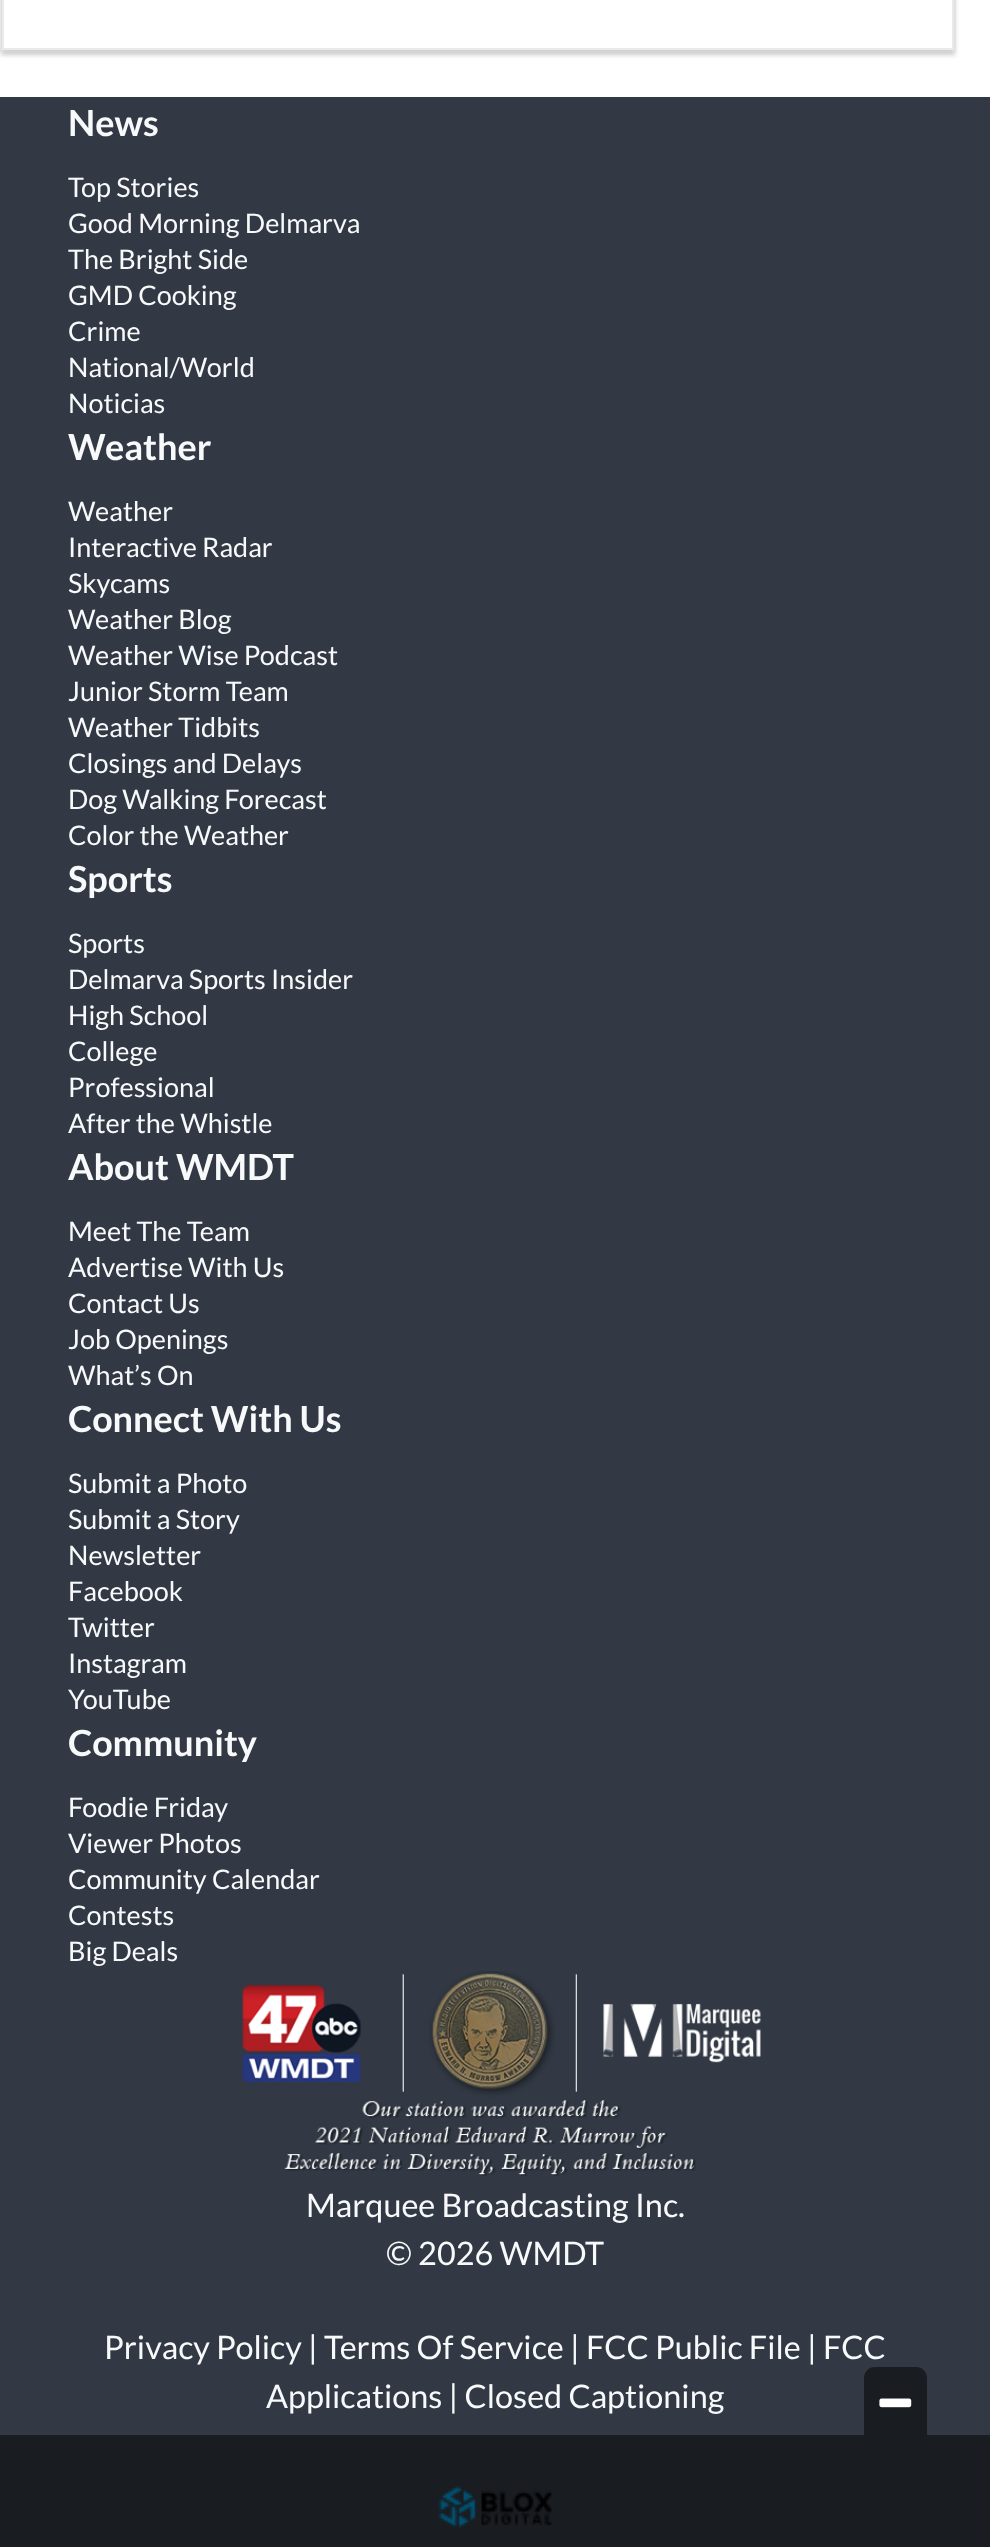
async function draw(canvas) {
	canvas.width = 990;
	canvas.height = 2547;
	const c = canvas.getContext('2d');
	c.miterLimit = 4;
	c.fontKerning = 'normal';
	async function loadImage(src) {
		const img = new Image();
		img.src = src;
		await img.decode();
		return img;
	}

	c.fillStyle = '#fff';
	c.fillRect(0, 0, 990, 2547);
	c.fillStyle = '#0000001a';
	c.filter = 'blur(2px)';
	c.beginPath();
	c.rect(0, -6, 956, 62);
	c.fill();
	c.filter = 'none';
	c.strokeStyle = '#eaeaea';
	c.lineWidth = 2;
	c.strokeRect(1, -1, 954, 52);
	c.filter = 'blur(2px)';
	c.beginPath();
	c.rect(2, -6, 952, 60);
	c.fill();
	c.filter = 'none';
	c.fillStyle = '#fff';
	c.beginPath();
	c.rect(3, -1, 950, 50);
	c.fill();
	c.stroke();
	c.fillStyle = '#323944';
	c.fillRect(0, 97, 990, 2338);
	c.fillStyle = '#191d22';
	c.beginPath();
	c.roundRect(864, 2367, 63, 68, [11, 11, 0, 0]);
	c.fill();
	c.drawImage(await loadImage('img1.png'), 879, 2398, 33, 10);
	c.fillRect(0, 2435, 990, 112);
	c.font = 'bold 36px Lato';
	c.fillStyle = '#f8f9fa';
	c.fillText('News', 68, 136);
	c.font = '27px Lato';
	for (const [text, x, y] of [
		['Top Stories', 68, 197],
		['Good Morning Delmarva', 68, 233],
		['The Bright Side', 68, 269],
		['GMD Cooking', 68, 305],
		['Crime', 68, 341],
		['National/World', 68, 377],
		['Noticias', 68, 413],
	]) {
		c.fillText(text, x, y);
	}
	c.font = 'bold 36px Lato';
	c.fillText('Weather', 68, 460);
	c.font = '27px Lato';
	for (const [text, x, y] of [
		['Weather', 68, 521],
		['Interactive Radar', 68, 557],
		['Skycams', 68, 593],
		['Weather Blog', 68, 629],
		['Weather Wise Podcast', 68, 665],
		['Junior Storm Team', 68, 701],
		['Weather Tidbits', 68, 737],
		['Closings and Delays', 68, 773],
		['Dog Walking Forecast', 68, 809],
		['Color the Weather', 68, 845],
	]) {
		c.fillText(text, x, y);
	}
	c.font = 'bold 36px Lato';
	c.fillText('Sports', 68, 892);
	c.font = '27px Lato';
	for (const [text, x, y] of [
		['Sports', 68, 953],
		['Delmarva Sports Insider', 68, 989],
		['High School', 68, 1025],
		['College', 68, 1061],
		['Professional', 68, 1097],
		['After the Whistle', 68, 1133],
	]) {
		c.fillText(text, x, y);
	}
	c.font = 'bold 36px Lato';
	c.fillText('About WMDT', 68, 1180);
	c.font = '27px Lato';
	for (const [text, x, y] of [
		['Meet The Team', 68, 1241],
		['Advertise With Us', 68, 1277],
		['Contact Us', 68, 1313],
		['Job Openings', 68, 1349],
		['What’s On', 68, 1385],
	]) {
		c.fillText(text, x, y);
	}
	c.font = 'bold 36px Lato';
	c.fillText('Connect With Us', 68, 1432);
	c.font = '27px Lato';
	for (const [text, x, y] of [
		['Submit a Photo', 68, 1493],
		['Submit a Story', 68, 1529],
		['Newsletter', 68, 1565],
		['Facebook', 68, 1601],
		['Twitter', 68, 1637],
		['Instagram', 68, 1673],
		['YouTube', 68, 1709],
	]) {
		c.fillText(text, x, y);
	}
	c.font = 'bold 36px Lato';
	c.fillText('Community', 68, 1756);
	c.font = '27px Lato';
	for (const [text, x, y] of [
		['Foodie Friday', 68, 1817],
		['Viewer Photos', 68, 1853],
		['Community Calendar', 68, 1889],
		['Contests', 68, 1925],
		['Big Deals', 68, 1961],
	]) {
		c.fillText(text, x, y);
	}
	c.drawImage(await loadImage('img2.png'), 242, 1971, 519, 205);
	c.font = '32.4px Lato';
	for (const [text, x, y] of [
		['Marquee Broadcasting Inc.', 306, 2217],
		['© 2026 WMDT', 386, 2265],
		['Privacy Policy | Terms Of Service | FCC Public File | FCC', 104, 2359],
		['Applications | Closed Captioning', 266, 2408],
	]) {
		c.fillText(text, x, y);
	}
	c.drawImage(await loadImage('img3.png'), 438, 2486, 114, 42);
}

draw(document.querySelector('canvas'));
